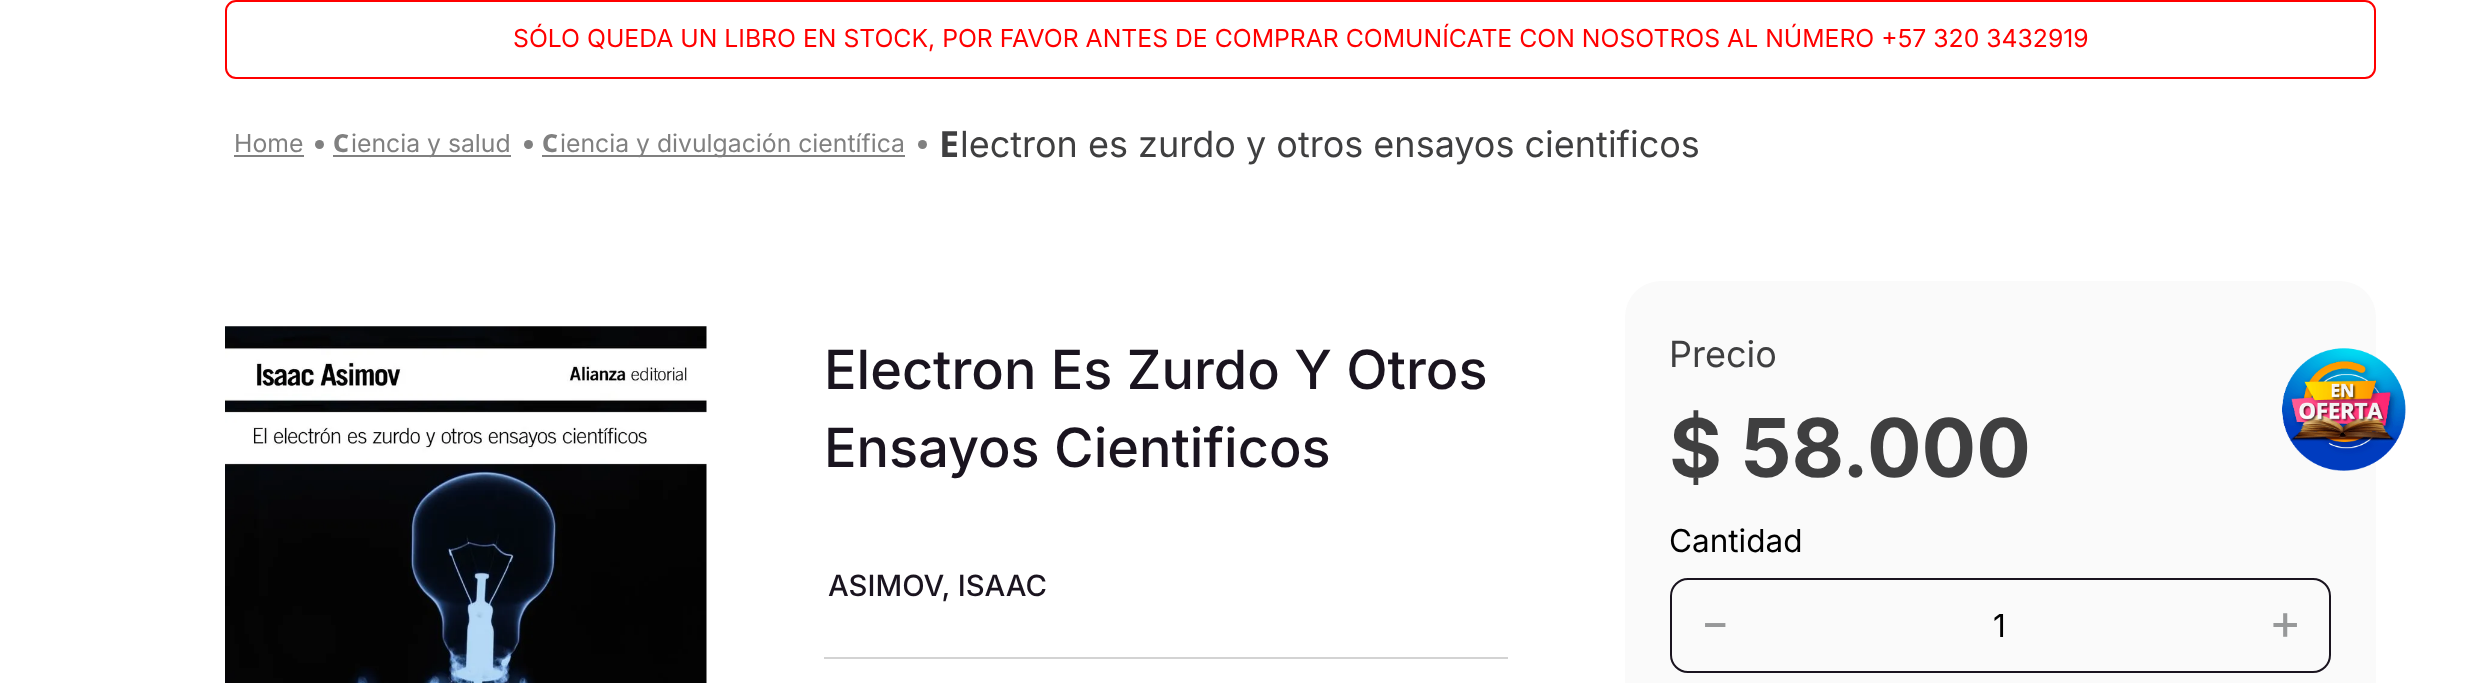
async function draw(canvas) {
	canvas.width = 2466;
	canvas.height = 683;
	const c = canvas.getContext('2d');
	c.miterLimit = 4;
	c.fontKerning = 'normal';
	async function loadImage(src) {
		const img = new Image();
		img.src = src;
		await img.decode();
		return img;
	}

	c.fillStyle = '#fff';
	c.fillRect(0, 0, 2466, 683);
	c.beginPath();
	c.roundRect(226, 1, 2149, 77, 10);
	c.strokeStyle = '#f00';
	c.lineWidth = 2;
	c.stroke();
	c.font = '24.75px Inter';
	c.fillStyle = '#f00';
	c.fillText('SÓLO QUEDA UN LIBRO EN STOCK, POR FAVOR ANTES DE COMPRAR COMUNÍCATE CON NOSOTROS AL NÚMERO +57 320 3432919', 513, 47);
	c.fillStyle = '#808080';
	c.fillText('Home', 234, 152);
	c.fillRect(234, 155, 70, 2);
	c.beginPath();
	c.arc(319.5, 144.5, 4.5, 0, 2 * Math.PI);
	c.fill();
	c.font = '800 24.75px Noto Sans';
	c.fillText('C', 333, 152);
	c.fillRect(333, 155, 178, 2);
	c.font = '24.75px Inter';
	c.fillText('iencia y salud', 351, 152);
	c.beginPath();
	c.arc(528.5, 144.5, 4.5, 0, 2 * Math.PI);
	c.fill();
	c.font = '800 24.75px Noto Sans';
	c.fillText('C', 542, 152);
	c.fillRect(542, 155, 363, 2);
	c.font = '24.75px Inter';
	c.fillText('iencia y divulgación científica', 560, 152);
	c.beginPath();
	c.arc(922.5, 144.5, 4.5, 0, 2 * Math.PI);
	c.fill();
	c.font = 'bold 36px Noto Sans';
	c.fillStyle = '#3f3f40';
	c.fillText('E', 939, 157);
	c.font = '36px Inter';
	c.fillText('lectron es zurdo y otros ensayos cientificos', 960, 157);
	c.drawImage(await loadImage('img1.png'), 225, 326, 482, 357);
	c.font = '500 54px Inter';
	c.fillStyle = '#1a141f';
	c.fillText('Electron Es Zurdo Y Otros', 824, 389);
	c.fillText('Ensayos Cientificos', 824, 467);
	c.font = '500 29.25px Inter';
	c.fillText('ASIMOV, ISAAC', 828, 596);
	c.fillStyle = '#d3d3d3';
	c.fillRect(824, 657, 684, 2);
	c.fillStyle = '#fafafa';
	c.beginPath();
	c.roundRect(1625, 281, 751, 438, 36);
	c.fill();
	c.font = '36px Inter';
	c.fillStyle = '#3f3f40';
	c.fillText('Precio', 1669, 367);
	c.font = 'bold 81px Inter';
	for (const [text, x, y] of [
		['$ 58', 1669, 477],
		['.', 1842, 477],
		['000', 1867, 477],
	]) {
		c.fillText(text, x, y);
	}
	c.font = '31.5px Inter';
	c.fillStyle = '#000';
	c.fillText('Cantidad', 1669, 552);
	c.beginPath();
	c.roundRect(1671, 579, 659, 93, 17);
	c.strokeStyle = '#1a141f';
	c.stroke();
	c.font = 'bold 43px WenQuanYi Zen Hei';
	c.fillStyle = '#979899';
	c.fillText('－', 1693, 638);
	c.font = '31.5px Inter';
	c.fillStyle = '#000';
	c.fillText('1', 1993, 637);
	c.font = 'bold 43px WenQuanYi Zen Hei';
	c.fillStyle = '#979899';
	c.fillText('＋', 2263, 638);
	c.drawImage(await loadImage('img2.png'), 2282, 348, 124, 123);
}

draw(document.querySelector('canvas'));
